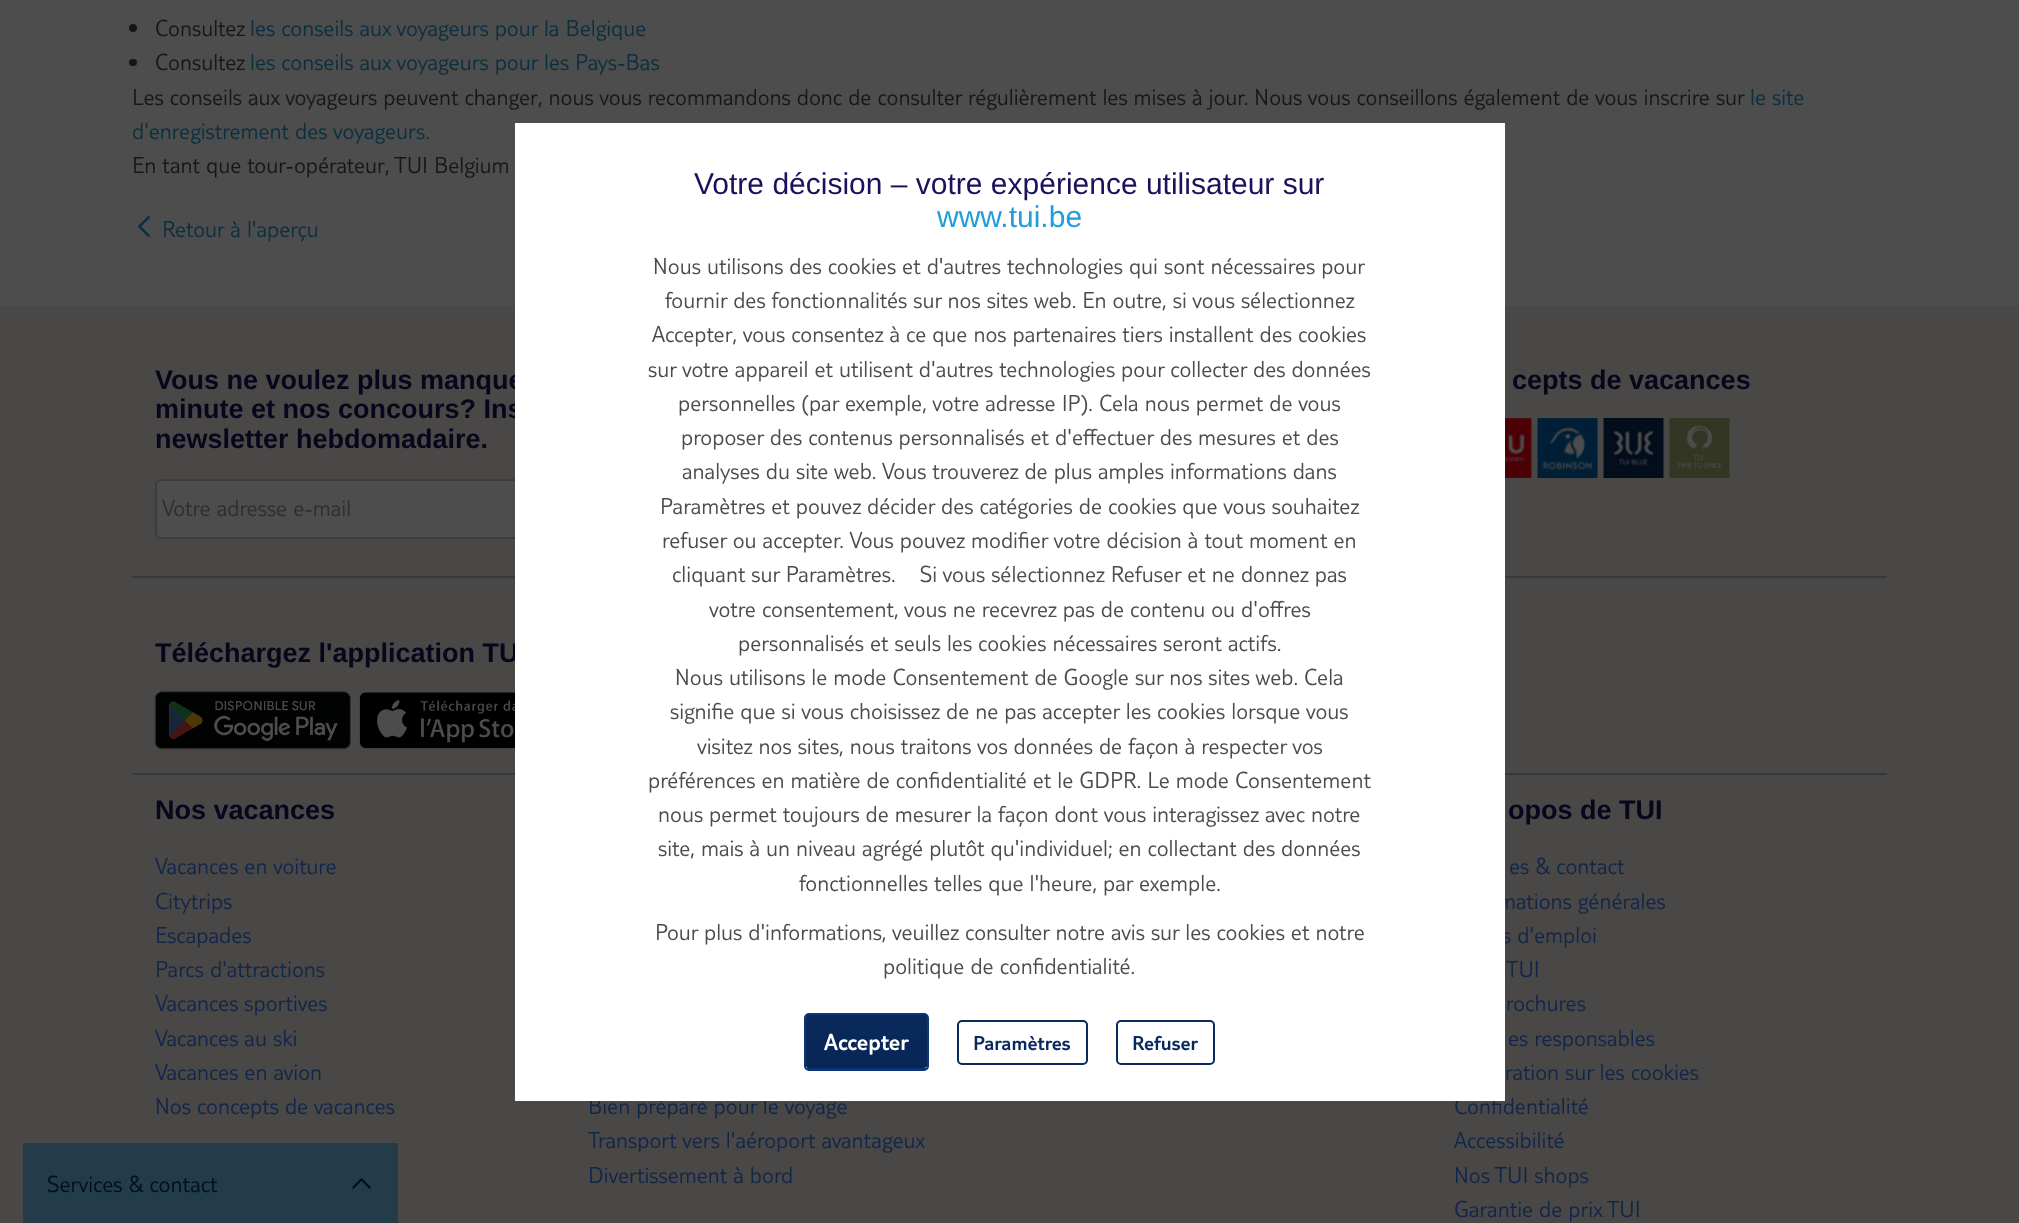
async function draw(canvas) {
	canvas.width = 2019;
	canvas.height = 1223;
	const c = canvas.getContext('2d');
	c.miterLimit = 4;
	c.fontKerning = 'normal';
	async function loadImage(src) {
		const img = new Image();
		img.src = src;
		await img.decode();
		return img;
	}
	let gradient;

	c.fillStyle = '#4d4d4d';
	c.fillRect(0, 0, 2019, 1223);
	c.fillStyle = '#171717';
	c.beginPath();
	c.arc(133, 28, 4, 0, 2 * Math.PI);
	c.fill();
	c.font = '300 24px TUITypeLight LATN';
	c.fillText('Consultez', 155, 36);
	c.fillStyle = '#0a2f41';
	c.fillText('les conseils aux voyageurs pour la Belgique', 250, 36);
	c.fillStyle = '#171717';
	c.beginPath();
	c.roundRect(129, 59, 8, 7, 3.5);
	c.fill();
	c.fillText('Consultez', 155, 70);
	c.fillStyle = '#0a2f41';
	c.fillText('les conseils aux voyageurs pour les Pays-Bas', 250, 70);
	c.fillStyle = '#171717';
	c.fillText('Les conseils aux voyageurs peuvent changer, nous vous recommandons donc de consulter régulièrement les mises à jour. Nous vous conseillons également de vous inscrire sur', 132, 105);
	c.fillStyle = '#0a2f41';
	c.fillText('le site', 1750, 105);
	c.fillText('d\'enregistrement des voyageurs.', 132, 139);
	c.fillStyle = '#171717';
	c.fillText('En tant que tour-opérateur, TUI Belgium', 132, 173);
	c.drawImage(await loadImage('img1.png'), 138, 216, 12, 21);
	c.fillStyle = '#0a2f41';
	c.fillText('Retour à l\'aperçu', 162, 237);
	c.fillStyle = '#494847';
	c.fillRect(0, 306, 2019, 917);
	c.font = 'bold 27px Liberation Sans';
	c.fillStyle = '#08051c';
	c.fillText('Vous ne voulez plus manque', 155, 389);
	c.fillText('minute et nos concours? Ins', 155, 418);
	c.fillStyle = '#4d4d4d';
	c.beginPath();
	c.roundRect(156, 480, 523, 58, 5);
	c.fill();
	c.strokeStyle = '#3d3d3d';
	c.lineWidth = 2;
	c.stroke();
	c.fillStyle = '#383838';
	c.fillRect(132, 576, 1755, 2);
	c.fillRect(132, 773, 1755, 2);
	c.fillStyle = '#08051c';
	c.fillText('Téléchargez l\'application TU', 155, 662);
	c.font = '300 24px TUITypeLight LATN';
	c.fillStyle = '#11264a';
	for (const [text, x, y] of [
		['mations générales', 1498, 909],
		['s d\'emploi', 1502, 943],
		['Confidentialité', 1454, 1114],
		['Bien préparé pour le voyage', 588, 1114],
	]) {
		c.fillText(text, x, y);
	}
	c.fillStyle = '#fff';
	c.fillRect(515, 123, 990, 978);
	c.font = '30px Liberation Sans';
	c.fillStyle = '#1b115c';
	c.fillText('Votre décision – votre expérience utilisateur sur', 694, 194);
	c.fillStyle = '#219ed9';
	c.fillText('www.tui.be', 937, 227);
	c.font = '300 24px TUITypeLight LATN';
	c.fillStyle = '#4c4c4c';
	for (const [text, x, y] of [
		['Nous utilisons des cookies et d\'autres technologies qui sont nécessaires pour', 653, 274],
		['fournir des fonctionnalités sur nos sites web. En outre, si vous sélectionnez', 665, 308],
		['Accepter, vous consentez à ce que nos partenaires tiers installent des cookies', 652, 342],
		['sur votre appareil et utilisent d\'autres technologies pour collecter des données', 648, 377],
		['personnelles (par exemple, votre adresse IP). Cela nous permet de vous', 678, 411],
		['proposer des contenus personnalisés et d\'effectuer des mesures et des', 681, 445],
		['analyses du site web. Vous trouverez de plus amples informations dans', 682, 479],
		['Paramètres et pouvez décider des catégories de cookies que vous souhaitez', 660, 514],
		['refuser ou accepter. Vous pouvez modifier votre décision à tout moment en', 662, 548],
		['cliquant sur Paramètres.    Si vous sélectionnez Refuser et ne donnez pas', 672, 582],
		['votre consentement, vous ne recevrez pas de contenu ou d\'offres', 709, 617],
		['personnalisés et seuls les cookies nécessaires seront actifs.', 738, 651],
		['Nous utilisons le mode Consentement de Google sur nos sites web. Cela', 675, 685],
		['signifie que si vous choisissez de ne pas accepter les cookies lorsque vous', 670, 719],
		['visitez nos sites, nous traitons vos données de façon à respecter vos', 697, 754],
		['préférences en matière de confidentialité et le GDPR. Le mode Consentement', 648, 788],
		['nous permet toujours de mesurer la façon dont vous interagissez avec notre', 658, 822],
		['site, mais à un niveau agrégé plutôt qu\'individuel; en collectant des données', 658, 856],
		['fonctionnelles telles que l\'heure, par exemple.', 799, 891],
		['Pour plus d\'informations, veuillez consulter notre avis sur les cookies et notre', 655, 940],
		['politique de confidentialité.', 883, 974],
	]) {
		c.fillText(text, x, y);
	}
	c.fillStyle = '#092a5e';
	c.beginPath();
	c.moveTo(808, 1014);
	c.lineTo(924, 1014);
	c.bezierCurveTo(926, 1014, 927, 1015, 927, 1017);
	c.lineTo(927, 1066);
	c.bezierCurveTo(927, 1067, 926, 1068, 924, 1068);
	c.lineTo(808, 1068);
	c.bezierCurveTo(807, 1068, 806, 1067, 806, 1066);
	c.lineTo(806, 1017);
	c.bezierCurveTo(806, 1015, 807, 1014, 808, 1014);
	c.closePath();
	c.fill();
	gradient = c.createLinearGradient(866, 1014, 866, 1068);
	gradient.addColorStop(0, '#00000000');
	gradient.addColorStop(1, '#0000001a');
	c.fillStyle = gradient;
	c.beginPath();
	c.moveTo(808, 1014);
	c.lineTo(924, 1014);
	c.bezierCurveTo(926, 1014, 927, 1015, 927, 1017);
	c.lineTo(927, 1066);
	c.bezierCurveTo(927, 1067, 926, 1068, 924, 1068);
	c.lineTo(808, 1068);
	c.bezierCurveTo(807, 1068, 806, 1067, 806, 1066);
	c.lineTo(806, 1017);
	c.bezierCurveTo(806, 1015, 807, 1014, 808, 1014);
	c.closePath();
	c.fill();
	c.beginPath();
	c.roundRect(805, 1014, 123, 56, 4);
	c.strokeStyle = '#0c3578';
	c.stroke();
	c.fillStyle = '#0c3578';
	c.fillRect(807, 1068, 120, 1);
	c.font = '300 24px "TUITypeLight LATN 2"';
	c.fillStyle = '#fff';
	c.fillText('Accepter', 824, 1050);
	c.beginPath();
	c.roundRect(958, 1021, 129, 43, 4);
	c.strokeStyle = '#092a5e';
	c.stroke();
	c.font = '300 21px "TUITypeLight LATN 2"';
	c.fillStyle = '#092a5e';
	c.fillText('Paramètres', 973, 1050);
	c.beginPath();
	c.roundRect(1117, 1021, 97, 43, 4);
	c.stroke();
	c.fillText('Refuser', 1132, 1050);
	c.fillStyle = '#223d49';
	c.fillRect(23, 1143, 375, 80);
	c.font = '300 24px TUITypeLight LATN';
	c.fillStyle = '#030d1c';
	c.fillText('Services & contact', 47, 1192);
	c.drawImage(await loadImage('img2.png'), 352, 1178, 19, 11);
	c.font = 'bold 27px Liberation Sans';
	c.fillStyle = '#08051c';
	c.fillText('newsletter hebdomadaire.', 155, 448);
	c.font = '300 24px TUITypeLight LATN';
	c.fillStyle = '#2e2e2e';
	c.fillText('Votre adresse e-mail', 162, 516);
	c.font = 'bold 27px Liberation Sans';
	c.fillStyle = '#08051c';
	c.fillText('cepts de vacances', 1512, 389);
	c.drawImage(await loadImage('img3.png'), 1505, 418, 27, 60);
	c.drawImage(await loadImage('img4.png'), 1537, 418, 61, 60);
	c.drawImage(await loadImage('img5.png'), 1603, 418, 61, 60);
	c.drawImage(await loadImage('img6.png'), 1669, 418, 61, 60);
	c.drawImage(await loadImage('img7.png'), 154, 691, 197, 59);
	c.drawImage(await loadImage('img8.png'), 359, 692, 156, 57);
	c.fillText('Nos vacances', 155, 819);
	c.font = '300 24px TUITypeLight LATN';
	c.fillStyle = '#11264a';
	for (const [text, x, y] of [
		['Vacances en voiture', 155, 874],
		['Citytrips', 155, 909],
		['Escapades', 155, 943],
		['Parcs d\'attractions', 155, 977],
		['Vacances sportives', 155, 1011],
		['Vacances au ski', 155, 1046],
		['Vacances en avion', 155, 1080],
		['Nos concepts de vacances', 155, 1114],
	]) {
		c.fillText(text, x, y);
	}
	c.font = 'bold 27px Liberation Sans';
	c.fillStyle = '#08051c';
	c.fillText('opos de TUI', 1508, 819);
	c.font = '300 24px TUITypeLight LATN';
	c.fillStyle = '#11264a';
	for (const [text, x, y] of [
		['es & contact', 1509, 874],
		['TUI', 1506, 977],
		['rochures', 1506, 1011],
		['es responsables', 1508, 1046],
		['ration sur les cookies', 1505, 1080],
		['Accessibilité', 1454, 1148],
		['Nos TUI shops', 1454, 1183],
		['Garantie de prix TUI', 1454, 1217],
		['Transport vers l\'aéroport avantageux', 588, 1148],
		['Divertissement à bord', 588, 1183],
	]) {
		c.fillText(text, x, y);
	}
}

draw(document.querySelector('canvas'));
